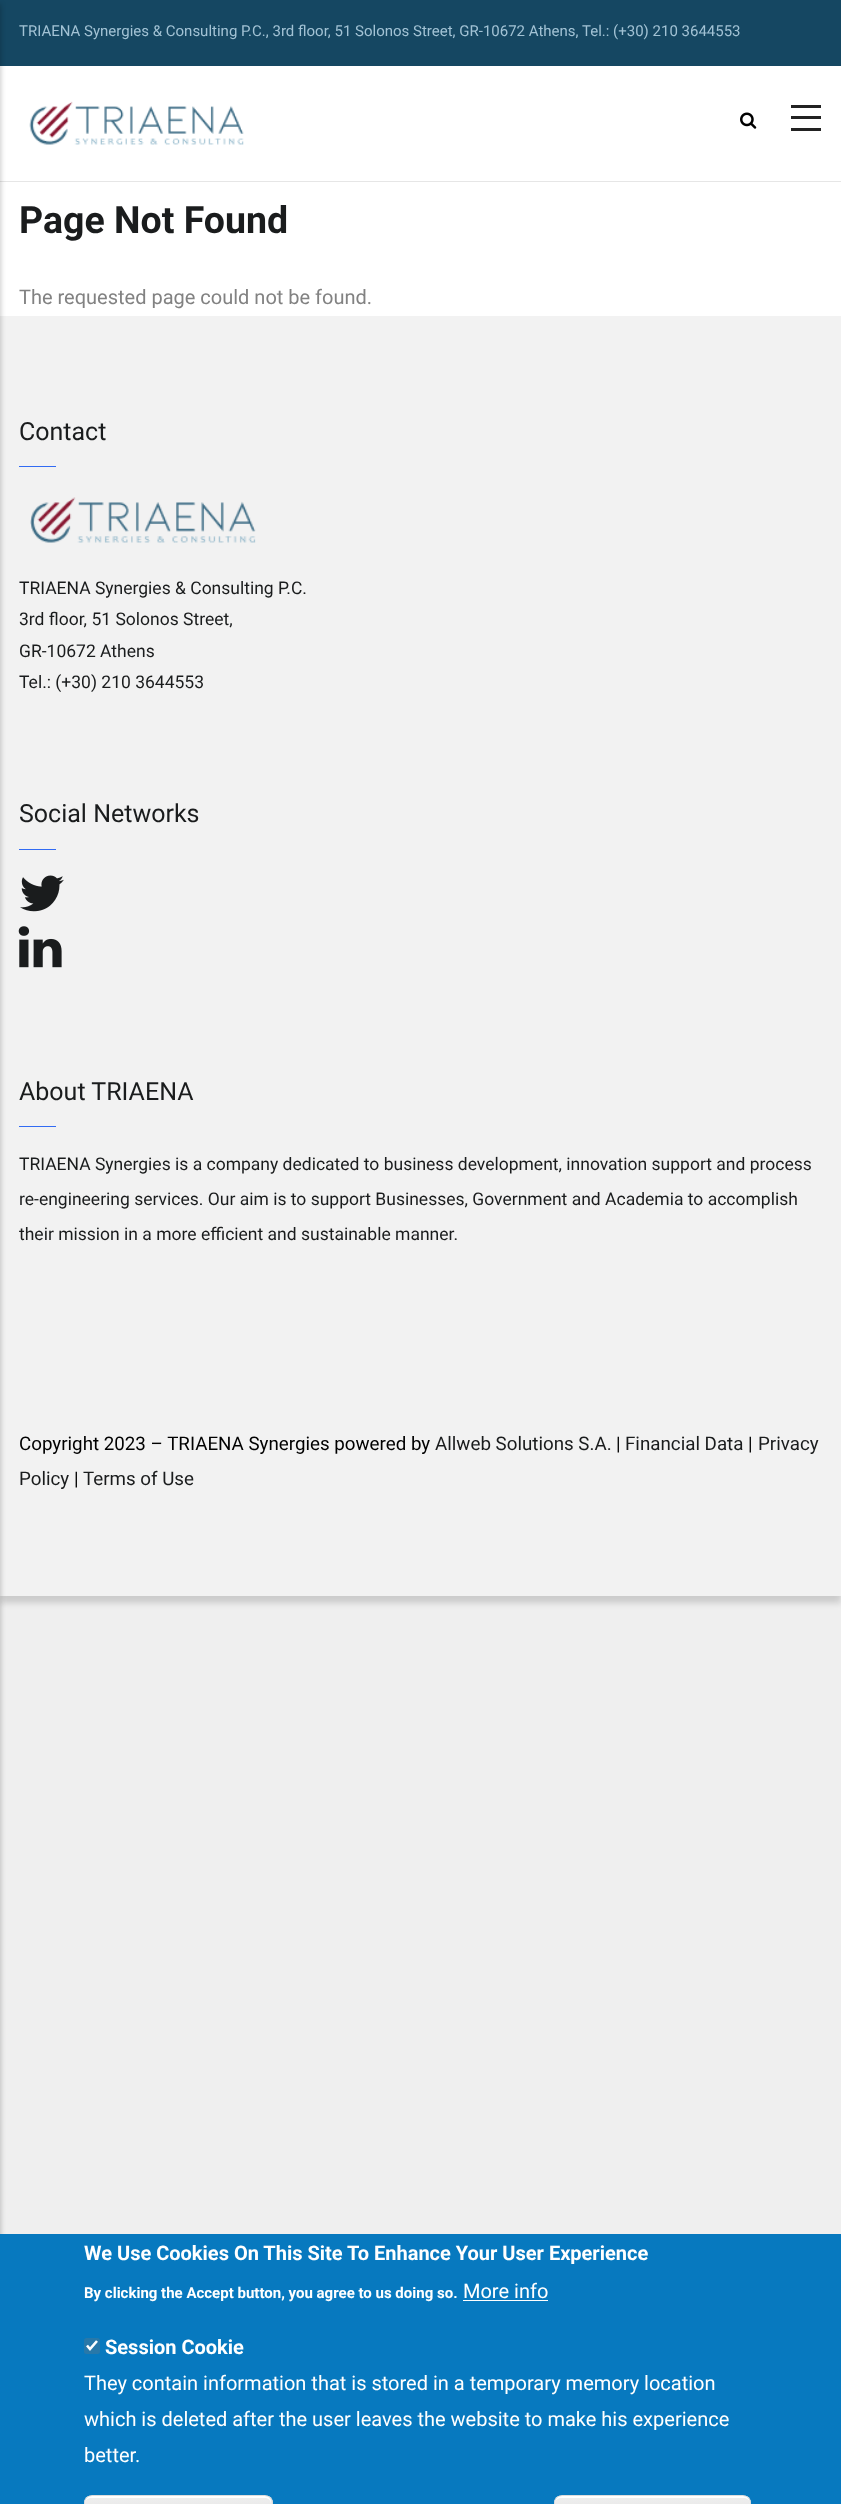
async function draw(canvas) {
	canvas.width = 841;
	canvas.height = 2504;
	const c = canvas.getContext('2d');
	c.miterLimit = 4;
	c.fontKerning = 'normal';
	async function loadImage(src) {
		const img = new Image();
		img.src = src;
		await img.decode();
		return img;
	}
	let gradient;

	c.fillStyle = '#efefef';
	c.fillRect(0, 0, 841, 2504);
	c.fillStyle = '#00000026';
	c.filter = 'blur(3px)';
	c.beginPath();
	c.rect(0, 6, 841, 1597);
	c.fill();
	c.filter = 'none';
	for (const [x, y, w, h, color] of [
		[0, 66, 841, 250, '#fff'],
		[0, 181, 841, 1, '#e6e6e6'],
		[0, 0, 841, 66, '#154762'],
		[0, 316, 841, 1280, '#f2f2f2'],
	]) {
		c.fillStyle = color;
		c.fillRect(x, y, w, h);
	}
	c.fillStyle = '#00000033';
	c.filter = 'blur(2.5px)';
	c.beginPath();
	c.rect(-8, 4, 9, 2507);
	c.fill();
	c.filter = 'none';
	c.drawImage(await loadImage('img1.png'), 740, 112, 17, 17);
	for (const [x, y, w, h, color] of [
		[791, 105, 30, 3, '#222'],
		[791, 116, 30, 3, '#222'],
		[791, 128, 30, 3, '#222'],
	]) {
		c.fillStyle = color;
		c.fillRect(x, y, w, h);
	}
	c.drawImage(await loadImage('img2.png'), 29, 101, 215, 44);
	c.font = '15px Roboto';
	c.fillStyle = '#a2c2d4';
	c.fillText('TRIAENA Synergies & Consulting P.C., 3rd floor, 51 Solonos Street, GR-10672 Athens, Tel.: (+30) 210 3644553', 19, 36);
	c.font = 'bold 37.5px Roboto';
	c.fillStyle = '#1a1c1d';
	c.fillText('Page Not Found', 19, 233);
	c.font = '20px Roboto';
	c.fillStyle = '#828282';
	c.fillText('The requested page could not be found.', 19, 304);
	c.font = '25px Roboto';
	c.fillStyle = '#1a1c1d';
	c.fillText('Contact', 19, 440);
	c.fillStyle = '#326bf3';
	c.fillRect(19, 466, 37, 1);
	c.drawImage(await loadImage('img3.png'), 30, 497, 226, 46);
	c.font = '17.5px Roboto';
	c.fillStyle = '#1a1c1d';
	for (const [text, x, y] of [
		['TRIAENA Synergies & Consulting P.C.', 19, 594],
		['3rd floor, 51 Solonos Street,', 19, 625],
		['GR-10672 Athens', 19, 657],
		['Tel.: (+30) 210 3644553', 19, 688],
	]) {
		c.fillText(text, x, y);
	}
	c.font = '25px Roboto';
	c.fillText('Social Networks', 19, 822);
	c.fillStyle = '#326bf3';
	c.fillRect(19, 849, 37, 1);
	c.drawImage(await loadImage('img4.png'), 20, 875, 44, 37);
	c.drawImage(await loadImage('img5.png'), 18, 926, 44, 42);
	c.fillStyle = '#1a1c1d';
	c.fillText('About TRIAENA', 19, 1100);
	c.fillStyle = '#326bf3';
	c.fillRect(19, 1126, 37, 1);
	c.font = '17.5px Roboto';
	c.fillStyle = '#1a1c1d';
	for (const [text, x, y] of [
		['TRIAENA Synergies is a company dedicated to business development, innovation support and process', 19, 1170],
		['re-engineering services. Our aim is to support Businesses, Government and Academia to accomplish', 19, 1205],
		['their mission in a more efficient and sustainable manner.', 19, 1240],
	]) {
		c.fillText(text, x, y);
	}
	c.font = '18.75px Roboto';
	c.fillStyle = '#000';
	c.fillText('Copyright 2023 – TRIAENA Synergies powered by', 19, 1450);
	c.fillStyle = '#1a1c1d';
	c.fillText('Allweb Solutions S.A.', 435, 1450);
	c.fillStyle = '#000';
	c.fillText('|', 616, 1450);
	c.fillStyle = '#1a1c1d';
	c.fillText('Financial Data', 625, 1450);
	c.fillStyle = '#000';
	c.fillText('|', 748, 1450);
	c.fillStyle = '#1a1c1d';
	c.fillText('Privacy', 758, 1450);
	c.fillText('Policy', 19, 1485);
	c.fillStyle = '#000';
	c.fillText('|', 74, 1485);
	c.fillStyle = '#1a1c1d';
	c.fillText('Terms of Use', 83, 1485);
	c.fillStyle = '#0779bf';
	c.fillRect(0, 2234, 841, 270);
	c.font = 'bold 20px Roboto';
	c.fillStyle = '#fff';
	c.fillText('We Use Cookies On This Site To Enhance Your User Experience', 84, 2260);
	c.font = 'bold 15px Roboto';
	c.fillText('By clicking the Accept button, you agree to us doing so.', 84, 2298);
	c.font = '20px Roboto';
	c.fillText('More info', 463, 2298);
	c.fillRect(463, 2300, 85, 1);
	c.fillStyle = '#2878a9';
	c.beginPath();
	c.roundRect(84, 2338, 16, 16, 2.5);
	c.fill();
	c.beginPath();
	c.moveTo(87, 2345.5);
	c.lineTo(90, 2349);
	c.lineTo(97, 2341);
	c.strokeStyle = '#fff';
	c.lineWidth = 2.6;
	c.stroke();
	c.font = 'bold 20px Roboto';
	c.fillStyle = '#fff';
	c.fillText('Session Cookie', 105, 2354);
	c.font = '20px Roboto';
	for (const [text, x, y] of [
		['They contain information that is stored in a temporary memory location', 84, 2390],
		['which is deleted after the user leaves the website to make his experience', 84, 2426],
		['better.', 84, 2462],
	]) {
		c.fillText(text, x, y);
	}
	c.save();
	c.beginPath();
	c.roundRect(84, 2495, 189, 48, 8);
	c.clip();
	gradient = c.createLinearGradient(178, 2496, 178, 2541);
	gradient.addColorStop(0.05, '#ededed');
	gradient.addColorStop(1, '#dfdfdf');
	c.fillStyle = gradient;
	c.fillRect(84, 2496, 189, 8);
	c.restore();
	c.beginPath();
	c.moveTo(91, 2498);
	c.lineTo(265, 2498);
	c.bezierCurveTo(268, 2498, 271, 2500, 271, 2504);
	c.lineTo(271, 2502);
	c.bezierCurveTo(271, 2499, 268, 2496, 265, 2496);
	c.lineTo(91, 2496);
	c.bezierCurveTo(88, 2496, 85, 2499, 85, 2502);
	c.lineTo(85, 2504);
	c.bezierCurveTo(85, 2500, 88, 2498, 91, 2498);
	c.closePath();
	c.fill();
	c.beginPath();
	c.roundRect(84.5, 2495.5, 188, 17, 7.5);
	c.strokeStyle = '#dcdcdc';
	c.lineWidth = 1;
	c.stroke();
	c.save();
	c.beginPath();
	c.roundRect(554, 2495, 197, 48, 8);
	c.clip();
	gradient = c.createLinearGradient(653, 2496, 653, 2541);
	gradient.addColorStop(0.05, '#ededed');
	gradient.addColorStop(1, '#dfdfdf');
	c.fillStyle = gradient;
	c.fillRect(554, 2496, 197, 8);
	c.restore();
	c.beginPath();
	c.moveTo(561, 2498);
	c.lineTo(744, 2498);
	c.bezierCurveTo(747, 2498, 750, 2500, 750, 2504);
	c.lineTo(750, 2502);
	c.bezierCurveTo(750, 2499, 747, 2496, 744, 2496);
	c.lineTo(561, 2496);
	c.bezierCurveTo(558, 2496, 555, 2499, 555, 2502);
	c.lineTo(555, 2504);
	c.bezierCurveTo(555, 2500, 558, 2498, 561, 2498);
	c.closePath();
	c.fill();
	c.beginPath();
	c.roundRect(554.5, 2495.5, 196, 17, 7.5);
	c.stroke();
}

draw(document.querySelector('canvas'));
